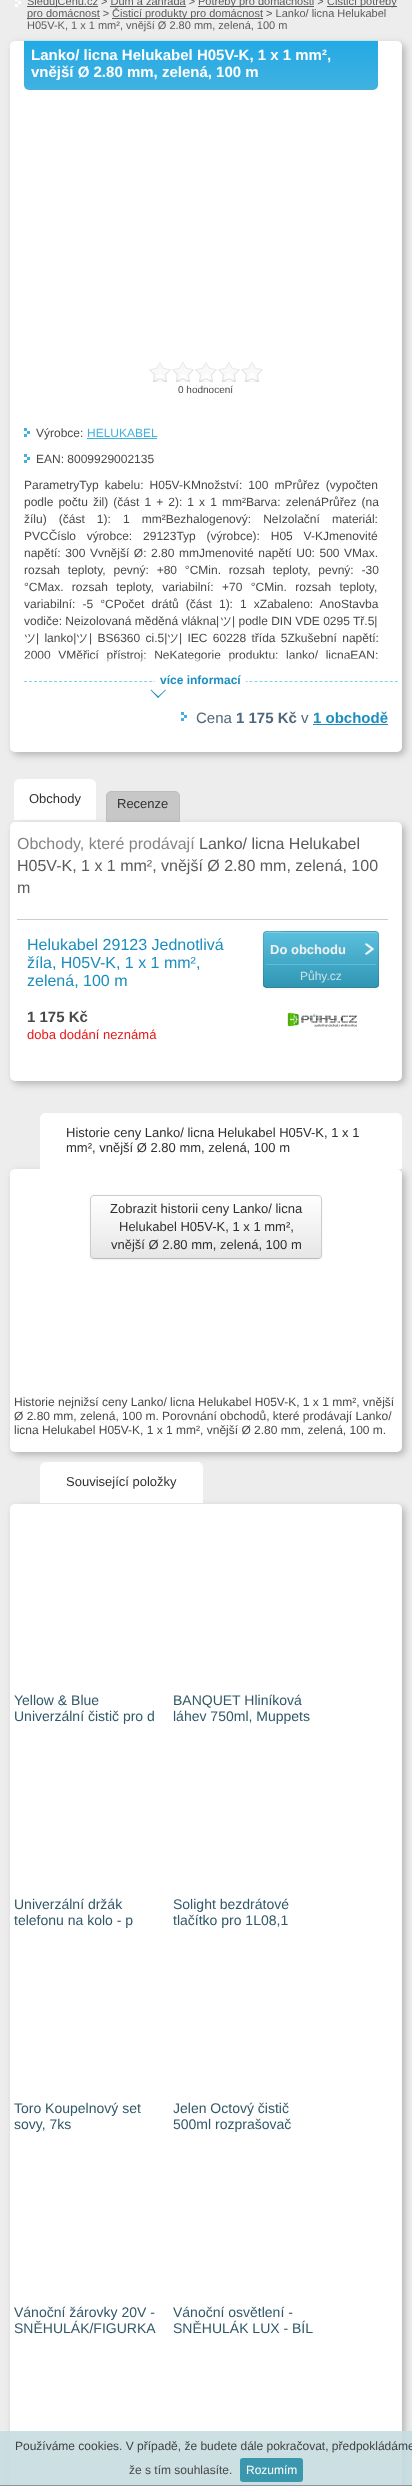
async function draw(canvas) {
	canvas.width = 412;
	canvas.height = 2486;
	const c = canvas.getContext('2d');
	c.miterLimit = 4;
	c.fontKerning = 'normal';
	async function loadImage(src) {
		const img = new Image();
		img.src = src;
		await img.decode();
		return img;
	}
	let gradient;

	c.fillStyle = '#ededed';
	c.fillRect(0, 0, 412, 2486);
	c.drawImage(await loadImage('img1.png'), 15, 0, 6, 7);
	c.fillStyle = '#575757';
	c.fillRect(27, 6, 71, 1);
	c.font = '11px Liberation Sans';
	c.fillStyle = '#5c5c5c';
	c.fillText('SledujCenu.cz > Dům a zahrada >', 27, 5);
	c.fillStyle = '#575757';
	c.fillRect(198, 6, 116, 1);
	c.fillStyle = '#5c5c5c';
	c.fillText('Potřeby pro domácnosti >', 198, 5);
	c.fillStyle = '#575757';
	c.fillRect(327, 6, 70, 1);
	c.fillStyle = '#5c5c5c';
	c.fillText('Čisticí potřeby', 327, 5);
	c.fillStyle = '#575757';
	c.fillRect(110, 6, 76, 1);
	c.fillRect(27, 18, 73, 1);
	c.fillStyle = '#5c5c5c';
	c.fillText('pro domácnost >', 27, 17);
	c.fillStyle = '#575757';
	c.fillRect(112, 18, 151, 1);
	c.fillStyle = '#5c5c5c';
	c.fillText('Čisticí produkty pro domácnost > Lanko/ licna Helukabel', 112, 17);
	c.fillText('H05V-K, 1 x 1 mm², vnější Ø 2.80 mm, zelená, 100 m', 27, 29);
	c.fillStyle = '#b3b3b3';
	c.filter = 'blur(3.5px)';
	c.beginPath();
	c.roundRect(13, 44, 392, 711, 5);
	c.fill();
	c.filter = 'none';
	c.fillStyle = '#fff';
	c.beginPath();
	c.roundRect(10, 41, 392, 711, 5);
	c.fill();
	gradient = c.createLinearGradient(201, 41, 201, 90);
	gradient.addColorStop(0, '#23aae4');
	gradient.addColorStop(1, '#41b1e1');
	c.fillStyle = gradient;
	c.beginPath();
	c.roundRect(24, 41, 354, 49, [0, 0, 5, 5]);
	c.fill();
	c.fillStyle = '#c0e8e9';
	c.fillRect(24, 40, 354, 1);
	c.font = 'bold 15px Liberation Sans';
	c.fillStyle = '#fff';
	c.fillText('Lanko/ licna Helukabel H05V-K, 1 x 1 mm²,', 31, 60);
	c.fillText('vnější Ø 2.80 mm, zelená, 100 m', 31, 77);
	c.drawImage(await loadImage('img2.png'), 149, 362, 114, 20);
	c.font = '10px Liberation Sans';
	c.fillStyle = '#494949';
	c.fillText('0 hodnocení', 178, 393);
	c.drawImage(await loadImage('img3.png'), 24, 428, 6, 9);
	c.font = '12px Liberation Sans';
	c.fillText('Výrobce:', 36, 437);
	c.fillStyle = '#41b1e1';
	c.fillText('HELUKABEL', 87, 437);
	c.fillRect(87, 438, 70, 1);
	c.drawImage(await loadImage('img3.png'), 24, 454, 6, 9);
	c.fillStyle = '#494949';
	c.fillText('EAN: 8009929002135', 36, 463);
	c.wordSpacing = '2.75px';
	c.fillText('ParametryTyp kabelu: H05V-KMnožství: 100 mPrůřez (vypočten', 24, 489);
	c.wordSpacing = '1.75px';
	c.fillText('podle počtu žil) (část 1 + 2): 1 x 1 mm²Barva: zelenáPrůřez (na', 24, 506);
	c.wordSpacing = '8.75px';
	c.fillText('žílu) (část 1): 1 mm²Bezhalogenový: NeIzolační materiál:', 24, 523);
	c.wordSpacing = '7.5px';
	c.fillText('PVCČíslo výrobce: 29123Typ (výrobce): H05 V-KJmenovité', 24, 540);
	c.wordSpacing = '1.25px';
	c.fillText('napětí: 300 Vvnější Ø: 2.80 mmJmenovité napětí U0: 500 VMax.', 24, 557);
	c.wordSpacing = '4.5px';
	c.fillText('rozsah teploty, pevný: +80 °CMin. rozsah teploty, pevný: -30', 24, 574);
	c.wordSpacing = '5px';
	c.fillText('°CMax. rozsah teploty, variabilní: +70 °CMin. rozsah teploty,', 24, 591);
	c.wordSpacing = '3.75px';
	c.fillText('variabilní: -5 °CPočet drátů (část 1): 1 xZabaleno: AnoStavba', 24, 608);
	c.wordSpacing = '0px';
	c.fillText('vodiče: Neizolovaná měděná vlákna|', 24, 625);
	c.font = '500 12px WenQuanYi Zen Hei';
	c.fillText('ツ', 220, 625);
	c.font = '12px Liberation Sans';
	c.fillText('| podle DIN VDE 0295 Tř.5|', 232, 625);
	c.font = '500 12px WenQuanYi Zen Hei';
	c.fillText('ツ', 24, 642);
	c.wordSpacing = '2px';
	c.font = '12px Liberation Sans';
	c.fillText('| lanko|', 36, 642);
	c.wordSpacing = '0px';
	c.font = '500 12px WenQuanYi Zen Hei';
	c.fillText('ツ', 76, 642);
	c.wordSpacing = '2px';
	c.font = '12px Liberation Sans';
	c.fillText('| BS6360 ci.5|', 89, 642);
	c.wordSpacing = '0px';
	c.font = '500 12px WenQuanYi Zen Hei';
	c.fillText('ツ', 167, 642);
	c.wordSpacing = '2px';
	c.font = '12px Liberation Sans';
	c.fillText('| IEC 60228 třída 5Zkušební napětí:', 179, 642);
	c.wordSpacing = '4.25px';
	c.fillText('2000 VMěřicí přístroj: NeKategorie produktu: lanko/ licnaEAN:', 24, 659);
	gradient = c.createLinearGradient(211, 658, 211, 682);
	gradient.addColorStop(0, '#ffffff66');
	gradient.addColorStop(1, '#fff');
	c.fillStyle = gradient;
	c.fillRect(24, 658, 353, 4);
	c.beginPath();
	c.moveTo(24, 681.5);
	c.lineTo(398, 681.5);
	c.strokeStyle = '#78d3f9';
	c.setLineDash([3, 2.01]);
	c.stroke();
	c.fillStyle = '#fff';
	c.fillRect(155, 681, 91, 1);
	c.wordSpacing = '0px';
	c.font = 'bold 12px Liberation Sans';
	c.fillStyle = '#1c8ebe';
	c.fillText('více informací', 160, 684);
	c.beginPath();
	c.moveTo(157.5, 697);
	c.lineTo(165.5, 689.5);
	c.lineTo(166, 690);
	c.lineTo(158, 698);
	c.closePath();
	c.fill();
	c.beginPath();
	c.moveTo(150.5, 690);
	c.lineTo(151, 689.5);
	c.lineTo(159, 697);
	c.lineTo(158, 698);
	c.closePath();
	c.fill();
	c.drawImage(await loadImage('img3.png'), 181, 712, 6, 9);
	c.font = '15px Liberation Sans';
	c.fillStyle = '#50687b';
	c.fillText('Cena', 196, 723);
	c.font = 'bold 15px Liberation Sans';
	c.fillText('1 175 Kč', 236, 723);
	c.font = '15px Liberation Sans';
	c.fillText('v', 301, 723);
	c.font = 'bold 15px Liberation Sans';
	c.fillStyle = '#1c8ebe';
	c.fillText('1 obchodě', 313, 723);
	c.fillRect(313, 724, 75, 1);
	c.fillStyle = '#fff';
	c.beginPath();
	c.roundRect(14.5, 779.5, 81, 40, [4.5, 4.5, 0, 0]);
	c.fill();
	c.strokeStyle = '#fff';
	c.setLineDash([]);
	c.stroke();
	c.font = '13px Liberation Sans';
	c.fillStyle = '#303030';
	c.fillText('Obchody', 29, 803);
	c.fillStyle = '#c7c7c7';
	c.beginPath();
	c.roundRect(106.5, 791.5, 73, 30, [4.5, 4.5, 0, 0]);
	c.fill();
	c.strokeStyle = '#bdbdbd';
	c.stroke();
	c.fillStyle = '#303030';
	c.fillText('Recenze', 117, 808);
	c.fillStyle = '#b3b3b3';
	c.filter = 'blur(3.5px)';
	c.beginPath();
	c.roundRect(13, 825, 392, 259, 5);
	c.fill();
	c.filter = 'none';
	c.fillStyle = '#fff';
	c.beginPath();
	c.roundRect(10, 822, 392, 259, 5);
	c.fill();
	c.font = '16px Liberation Sans';
	c.fillStyle = '#858585';
	c.fillText('Obchody, které prodávají', 17, 849);
	c.fillStyle = '#5c5c5c';
	for (const [text, x, y] of [
		['Lanko/ licna Helukabel', 199, 849],
		['H05V-K, 1 x 1 mm², vnější Ø 2.80 mm, zelená, 100', 17, 871],
		['m', 17, 893],
	]) {
		c.fillText(text, x, y);
	}
	c.fillStyle = '#ccc';
	c.fillRect(17, 919, 371, 1);
	c.fillStyle = '#1c8ebe';
	for (const [text, x, y] of [
		['Helukabel 29123 Jednotlivá', 27, 950],
		['žíla, H05V-K, 1 x 1 mm²,', 27, 968],
		['zelená, 100 m', 27, 986],
	]) {
		c.fillText(text, x, y);
	}
	c.fillStyle = '#0000000d';
	c.filter = 'blur(1px)';
	c.beginPath();
	c.roundRect(263, 932, 116, 57, 4);
	c.fill();
	c.filter = 'none';
	c.fillStyle = '#49afcd';
	c.beginPath();
	c.roundRect(263, 931, 116, 57, 4);
	c.fill();
	c.save();
	c.beginPath();
	c.roundRect(263, 931, 116, 57, 4);
	c.clip();
	gradient = c.createLinearGradient(321, 932, 321, 987);
	gradient.addColorStop(0, '#5bc0de');
	gradient.addColorStop(1, '#2f96b4');
	c.fillStyle = gradient;
	c.fillRect(263, 932, 116, 55);
	c.restore();
	c.fillStyle = '#ffffff33';
	c.beginPath();
	c.moveTo(267, 933);
	c.lineTo(375, 933);
	c.bezierCurveTo(377, 933, 378, 934, 378, 936);
	c.bezierCurveTo(378, 934, 377, 932, 375, 932);
	c.lineTo(285, 932);
	c.bezierCurveTo(283, 932, 264, 927, 264, 936);
	c.bezierCurveTo(264, 934, 265, 933, 267, 933);
	c.closePath();
	c.fill();
	c.beginPath();
	c.moveTo(377.5, 986.5);
	c.lineTo(375, 987.5);
	c.lineTo(266.5, 987.5);
	c.lineTo(264.5, 986.5);
	c.strokeStyle = '#00000040';
	c.stroke();
	c.beginPath();
	c.moveTo(264.5, 986.5);
	c.bezierCurveTo(264, 986, 263.5, 985, 263.5, 984);
	c.lineTo(263.5, 935);
	c.bezierCurveTo(263.5, 934, 264, 933, 264.5, 932.5);
	c.bezierCurveTo(265, 932, 266, 931.5, 267, 931.5);
	c.lineTo(375, 931.5);
	c.bezierCurveTo(376, 931.5, 377, 932, 377.5, 932.5);
	c.bezierCurveTo(378, 933, 378.5, 934, 378.5, 935);
	c.lineTo(378.5, 984);
	c.bezierCurveTo(378.5, 985, 378, 986, 377.5, 986.5);
	c.strokeStyle = '#0000001a';
	c.stroke();
	c.font = 'bold 13px Liberation Sans';
	c.fillStyle = '#f0f0f0';
	c.fillText('Do obchodu', 270, 954);
	c.drawImage(await loadImage('img4.png'), 365, 943, 9, 12);
	c.fillStyle = '#59bedc';
	c.fillRect(266, 964, 110, 1);
	c.font = '12px Liberation Sans';
	c.fillStyle = '#cce1e8';
	c.fillText('Půhy.cz', 300, 980);
	c.font = 'bold 15px Liberation Sans';
	c.fillStyle = '#494949';
	c.fillText('1 175 Kč', 27, 1022);
	c.font = '13px Liberation Sans';
	c.fillStyle = '#e81717';
	c.fillText('doba dodání neznámá', 27, 1039);
	c.drawImage(await loadImage('img5.png'), 287, 1012, 70, 16);
	c.fillStyle = '#b3b3b3';
	c.filter = 'blur(3.5px)';
	c.beginPath();
	c.roundRect(13, 1172, 392, 283, 5);
	c.fill();
	c.filter = 'none';
	c.fillStyle = '#fff';
	c.beginPath();
	c.roundRect(40.5, 1113.5, 361, 55, [4.5, 4.5, 0, 0]);
	c.fill();
	c.strokeStyle = '#fff';
	c.stroke();
	c.fillStyle = '#303030';
	c.fillText('Historie ceny Lanko/ licna Helukabel H05V-K, 1 x 1', 66, 1137);
	c.fillText('mm², vnější Ø 2.80 mm, zelená, 100 m', 66, 1152);
	c.fillStyle = '#fff';
	c.beginPath();
	c.roundRect(10, 1169, 392, 283, 5);
	c.fill();
	c.fillStyle = '#0000000d';
	c.filter = 'blur(1px)';
	c.beginPath();
	c.roundRect(90, 1196, 232, 64, 4);
	c.fill();
	c.filter = 'none';
	c.save();
	c.beginPath();
	c.roundRect(90, 1195, 232, 64, 4);
	c.clip();
	gradient = c.createLinearGradient(206, 1196, 206, 1258);
	gradient.addColorStop(0, '#fff');
	gradient.addColorStop(1, '#e6e6e6');
	c.fillStyle = gradient;
	c.fillRect(90, 1196, 232, 62);
	c.restore();
	c.beginPath();
	c.moveTo(320.5, 1257.5);
	c.bezierCurveTo(320, 1258, 319, 1258.5, 318, 1258.5);
	c.lineTo(94, 1258.5);
	c.bezierCurveTo(93, 1258.5, 92, 1258, 91.5, 1257.5);
	c.strokeStyle = '#bbb';
	c.stroke();
	c.beginPath();
	c.moveTo(91.5, 1257.5);
	c.bezierCurveTo(91, 1257, 90.5, 1256, 90.5, 1255);
	c.lineTo(90.5, 1199);
	c.bezierCurveTo(90.5, 1198, 91, 1197, 91.5, 1196.5);
	c.bezierCurveTo(92, 1196, 93, 1195.5, 94, 1195.5);
	c.lineTo(318, 1195.5);
	c.bezierCurveTo(319, 1195.5, 320, 1196, 320.5, 1196.5);
	c.bezierCurveTo(321, 1197, 321.5, 1198, 321.5, 1199);
	c.lineTo(321.5, 1255);
	c.bezierCurveTo(321.5, 1256, 321, 1257, 320.5, 1257.5);
	c.strokeStyle = '#ccc';
	c.stroke();
	c.fillStyle = '#303030';
	for (const [text, x, y] of [
		['Zobrazit historii ceny Lanko/ licna', 110, 1213],
		['Helukabel H05V-K, 1 x 1 mm²,', 119, 1231],
		['vnější Ø 2.80 mm, zelená, 100 m', 111, 1249],
	]) {
		c.fillText(text, x, y);
	}
	c.font = '12px Liberation Sans';
	c.fillStyle = '#494949';
	for (const [text, x, y] of [
		['Historie nejnižsí ceny Lanko/ licna Helukabel H05V-K, 1 x 1 mm², vnější', 14, 1406],
		['Ø 2.80 mm, zelená, 100 m. Porovnání obchodů, které prodávají Lanko/', 14, 1420],
		['licna Helukabel H05V-K, 1 x 1 mm², vnější Ø 2.80 mm, zelená, 100 m.', 14, 1434],
	]) {
		c.fillText(text, x, y);
	}
	c.fillStyle = '#b3b3b3';
	c.filter = 'blur(3.5px)';
	c.beginPath();
	c.roundRect(13, 1507, 392, 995, 5);
	c.fill();
	c.filter = 'none';
	c.fillStyle = '#fff';
	c.beginPath();
	c.roundRect(40.5, 1462.5, 162, 40, [4.5, 4.5, 0, 0]);
	c.fill();
	c.strokeStyle = '#fff';
	c.stroke();
	c.font = '13px Liberation Sans';
	c.fillStyle = '#303030';
	c.fillText('Související položky', 66, 1486);
	c.fillStyle = '#fff';
	c.beginPath();
	c.roundRect(10, 1504, 392, 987, 5);
	c.fill();
	c.font = '14px Liberation Sans';
	c.fillStyle = '#315868';
	for (const [text, x, y] of [
		['Yellow & Blue', 14, 1705],
		['Univerzální čistič pro d', 14, 1721],
		['BANQUET Hliníková', 173, 1705],
		['láhev 750ml, Muppets', 173, 1721],
		['Univerzální držák', 14, 1909],
		['telefonu na kolo - p', 14, 1925],
		['Solight bezdrátové', 173, 1909],
		['tlačítko pro 1L08,1', 173, 1925],
		['Toro Koupelnový set', 14, 2113],
		['sovy, 7ks', 14, 2129],
		['Jelen Octový čistič', 173, 2113],
		['500ml rozprašovač', 173, 2129],
		['Vánoční žárovky 20V -', 14, 2317],
		['SNĚHULÁK/FIGURKA', 14, 2333],
		['Vánoční osvětlení -', 173, 2317],
		['SNĚHULÁK LUX - BÍL', 173, 2333],
	]) {
		c.fillText(text, x, y);
	}
	c.fillStyle = '#c7dce0e6';
	c.fillRect(0, 2431, 412, 55);
	c.fillStyle = '#8a8a8ae6';
	c.fillRect(0, 2485, 412, 1);
	c.font = '12px Liberation Sans';
	c.fillStyle = '#414243';
	c.fillText('Používáme cookies. V případě, že budete dále pokračovat, předpokládáme', 15, 2450);
	c.fillStyle = '#494949';
	c.fillText('že s tím souhlasíte.', 129, 2474);
	c.fillStyle = '#3b97ad';
	c.beginPath();
	c.roundRect(240, 2458, 63, 24, 3);
	c.fill();
	c.fillStyle = '#fff';
	c.fillText('Rozumím', 246, 2474);
}

draw(document.querySelector('canvas'));
